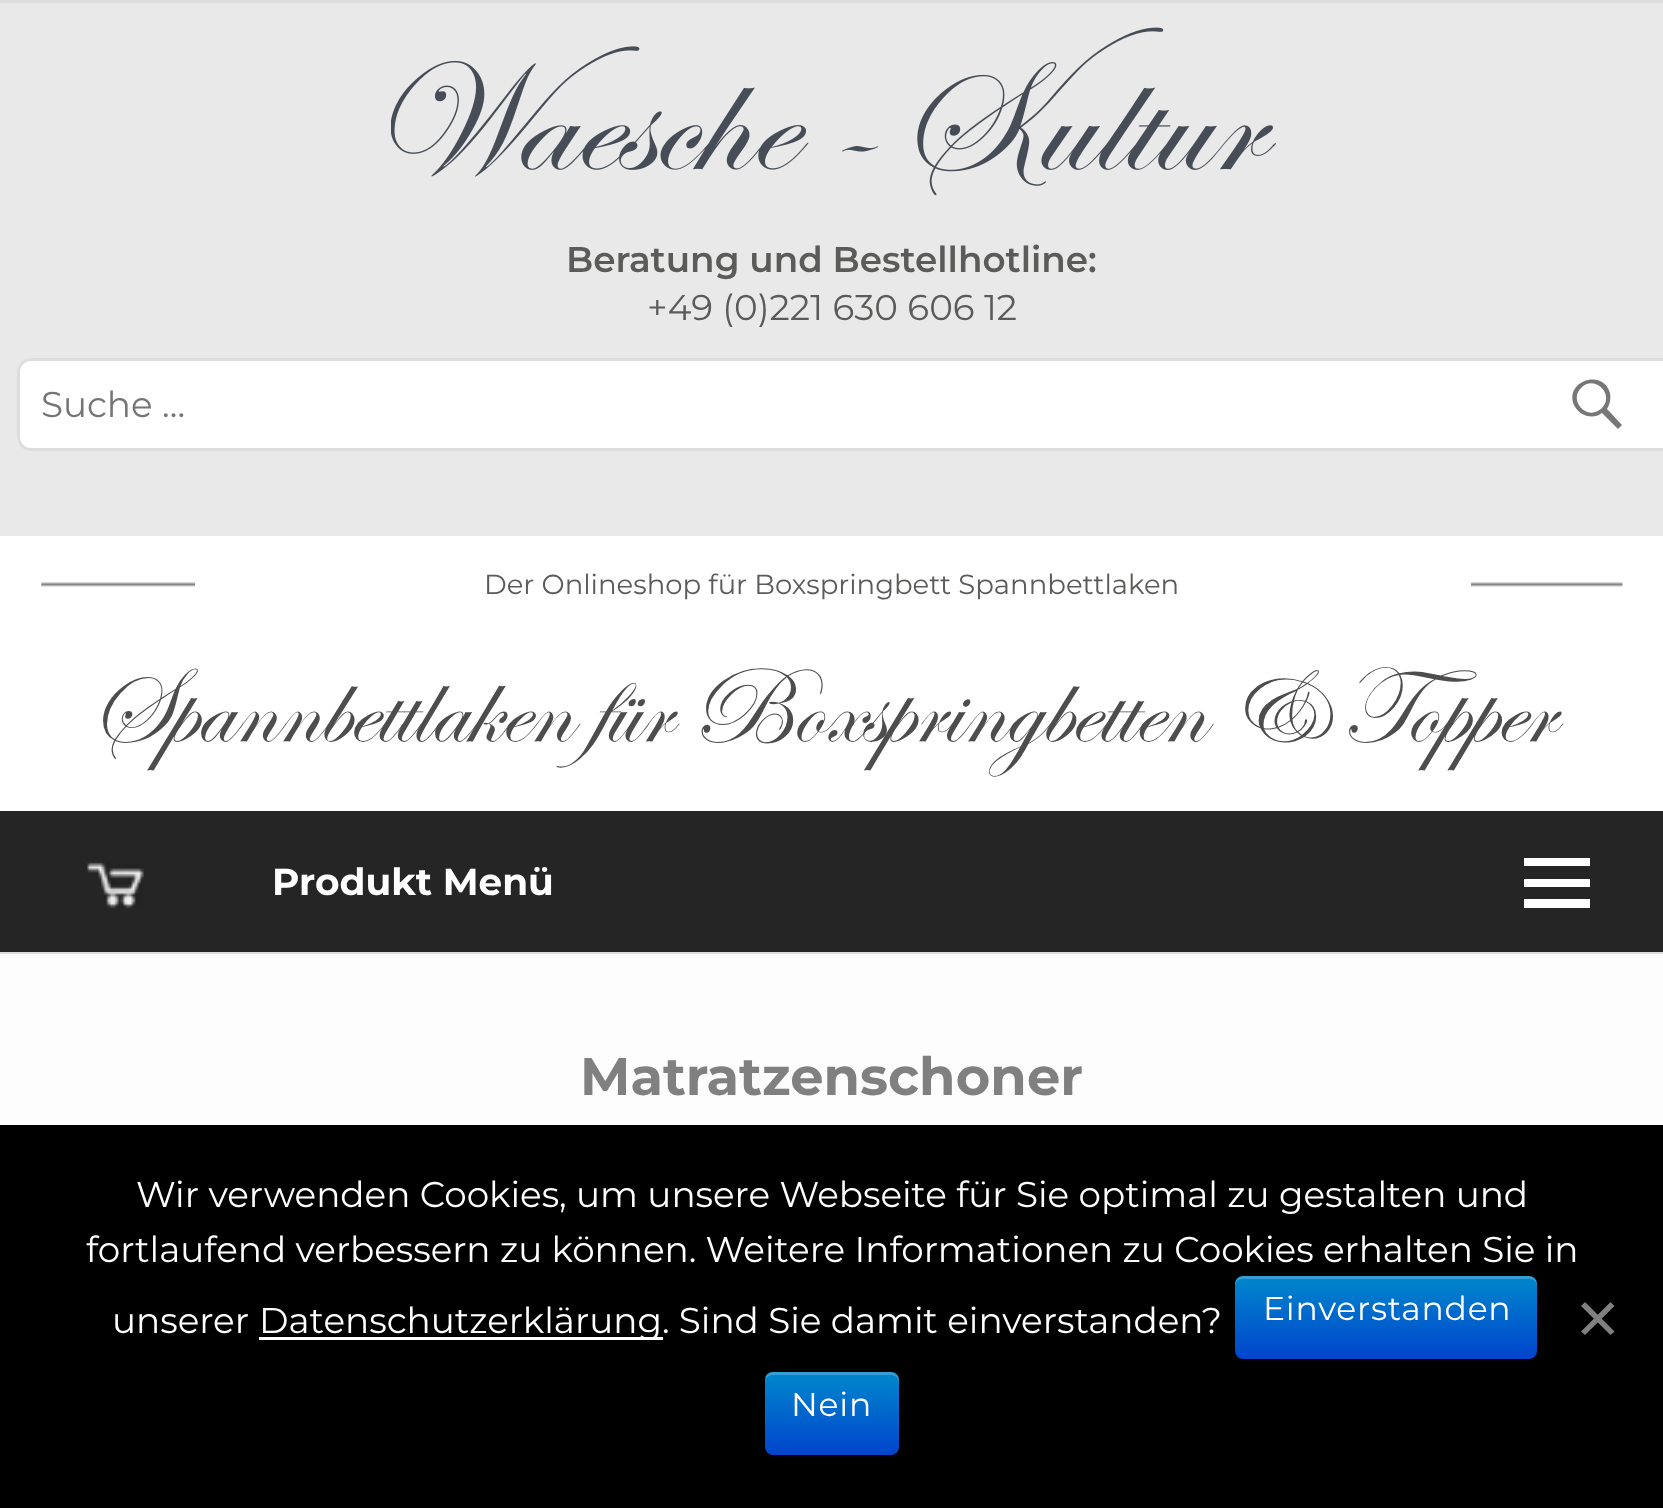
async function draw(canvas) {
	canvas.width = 1663;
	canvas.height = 1508;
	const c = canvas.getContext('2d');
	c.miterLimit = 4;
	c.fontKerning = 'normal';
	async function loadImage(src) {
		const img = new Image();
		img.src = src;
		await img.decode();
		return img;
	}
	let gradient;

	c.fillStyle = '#e9e9e9';
	c.fillRect(0, 0, 1663, 1508);
	c.fillStyle = '#ddd';
	c.fillRect(0, 0, 1663, 3);
	c.fillRect(0, 952, 1663, 2);
	c.drawImage(await loadImage('img1.png'), 391, 27, 885, 169);
	c.font = '600 35.75px Montserrat';
	c.fillStyle = '#5b5b5a';
	c.fillText('Beratung und Bestellhotline:', 566, 272);
	c.font = '35.75px Montserrat';
	c.fillText('+49 (0)221 630 606 12', 647, 320);
	c.fillStyle = '#fff';
	c.beginPath();
	c.moveTo(31, 358);
	c.lineTo(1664, 358);
	c.lineTo(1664, 451);
	c.lineTo(31, 451);
	c.bezierCurveTo(23.5, 451, 17, 444.5, 17, 437);
	c.lineTo(17, 372);
	c.bezierCurveTo(17, 364.5, 23.5, 358, 31, 358);
	c.closePath();
	c.fill();
	c.beginPath();
	c.roundRect(18.5, 359.5, 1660, 90, 12.5);
	c.strokeStyle = '#ddd';
	c.lineWidth = 3;
	c.stroke();
	c.fillStyle = '#757575';
	c.fillText('Suche …', 41, 417);
	c.fillStyle = '#777';
	c.beginPath();
	c.moveTo(1574, 405);
	c.bezierCurveTo(1564, 381, 1603, 368, 1610, 393);
	c.bezierCurveTo(1611, 399, 1610, 404, 1607, 409);
	c.lineTo(1622, 425);
	c.lineTo(1618, 429);
	c.lineTo(1602, 413);
	c.bezierCurveTo(1593, 420, 1579, 416, 1574, 405);
	c.closePath();
	c.moveTo(1581, 388);
	c.bezierCurveTo(1568, 401, 1588, 422, 1602, 408);
	c.bezierCurveTo(1615, 395, 1595, 374, 1581, 388);
	c.closePath();
	c.fill();
	c.fillStyle = '#fff';
	c.fillRect(0, 536, 1663, 275);
	c.drawImage(await loadImage('img2.png'), 41, 582, 1582, 5);
	c.fillRect(195, 582, 1276, 5);
	c.font = '27.5px Montserrat';
	c.fillStyle = '#5b5b5a';
	c.fillText('Der Onlineshop für Boxspringbett Spannbettlaken', 484, 594);
	c.drawImage(await loadImage('img3.png'), 103, 667, 1461, 110);
	c.fillStyle = '#252525';
	c.fillRect(0, 811, 1663, 141);
	c.drawImage(await loadImage('img4.png'), 87, 862, 57, 47);
	c.font = 'bold 37.5px Montserrat';
	c.fillStyle = '#fff';
	c.fillText('Produkt Menü', 272, 895);
	c.beginPath();
	c.moveTo(1524, 908);
	c.lineTo(1524, 899);
	c.lineTo(1590, 899);
	c.lineTo(1590, 908);
	c.closePath();
	c.moveTo(1524, 887);
	c.lineTo(1524, 879);
	c.lineTo(1590, 879);
	c.lineTo(1590, 887);
	c.closePath();
	c.moveTo(1524, 866);
	c.lineTo(1524, 858);
	c.lineTo(1590, 858);
	c.lineTo(1590, 866);
	c.closePath();
	c.fill();
	c.fillStyle = '#fdfdfd';
	c.fillRect(0, 954, 1663, 171);
	c.font = 'bold 52.75px Montserrat';
	c.fillStyle = '#808080';
	c.fillText('Matratzenschoner', 580, 1095);
	c.fillStyle = '#000';
	c.fillRect(0, 1125, 1663, 383);
	c.font = '35.75px Montserrat';
	c.fillStyle = '#fff';
	c.fillText('Wir verwenden Cookies, um unsere Webseite für Sie optimal zu gestalten und', 136, 1207);
	c.fillText('fortlaufend verbessern zu können. Weitere Informationen zu Cookies erhalten Sie in', 86, 1262);
	gradient = c.createLinearGradient(1386, 1276, 1386, 1359);
	gradient.addColorStop(0, '#08c');
	gradient.addColorStop(1, '#04c');
	c.fillStyle = gradient;
	c.beginPath();
	c.roundRect(1235, 1276, 302, 83, 8);
	c.fill();
	c.fillStyle = '#ffffff33';
	c.beginPath();
	c.moveTo(1243, 1279);
	c.lineTo(1529, 1279);
	c.bezierCurveTo(1534, 1279, 1537, 1282, 1537, 1287);
	c.lineTo(1537, 1284);
	c.bezierCurveTo(1537, 1280, 1533, 1276, 1529, 1276);
	c.lineTo(1243, 1276);
	c.bezierCurveTo(1239, 1276, 1235, 1280, 1235, 1284);
	c.lineTo(1235, 1287);
	c.bezierCurveTo(1235, 1282, 1238, 1279, 1243, 1279);
	c.closePath();
	c.fill();
	c.letterSpacing = '0.75px';
	c.font = '33px Montserrat';
	c.fillStyle = '#fff';
	c.fillText('Einverstanden', 1263, 1320);
	gradient = c.createLinearGradient(832, 1372, 832, 1455);
	gradient.addColorStop(0, '#08c');
	gradient.addColorStop(1, '#04c');
	c.fillStyle = gradient;
	c.beginPath();
	c.roundRect(765, 1372, 134, 83, 8);
	c.fill();
	c.fillStyle = '#ffffff33';
	c.beginPath();
	c.moveTo(773, 1375);
	c.lineTo(891, 1375);
	c.bezierCurveTo(896, 1375, 899, 1379, 899, 1383);
	c.lineTo(899, 1380);
	c.bezierCurveTo(899, 1376, 895, 1372, 891, 1372);
	c.lineTo(773, 1372);
	c.bezierCurveTo(769, 1372, 765, 1375, 765, 1379);
	c.bezierCurveTo(767, 1377, 770, 1375, 773, 1375);
	c.closePath();
	c.fill();
	c.fillStyle = '#fff';
	c.fillText('Nein', 791, 1416);
	c.fillStyle = '#808080';
	c.beginPath();
	c.moveTo(1610.5, 1302);
	c.lineTo(1614.5, 1306);
	c.lineTo(1585, 1335);
	c.lineTo(1581, 1331.5);
	c.closePath();
	c.fill();
	c.beginPath();
	c.moveTo(1581, 1306);
	c.lineTo(1585, 1302);
	c.lineTo(1614.5, 1331.5);
	c.lineTo(1610.5, 1335);
	c.closePath();
	c.fill();
	c.letterSpacing = '0px';
	c.font = '35.75px Montserrat';
	c.fillStyle = '#fff';
	c.fillText('unserer', 112, 1333);
	c.fillRect(259, 1337, 404, 3);
	c.fillText('Datenschutzerklärung. Sind Sie damit einverstanden?', 259, 1333);
}

draw(document.querySelector('canvas'));
